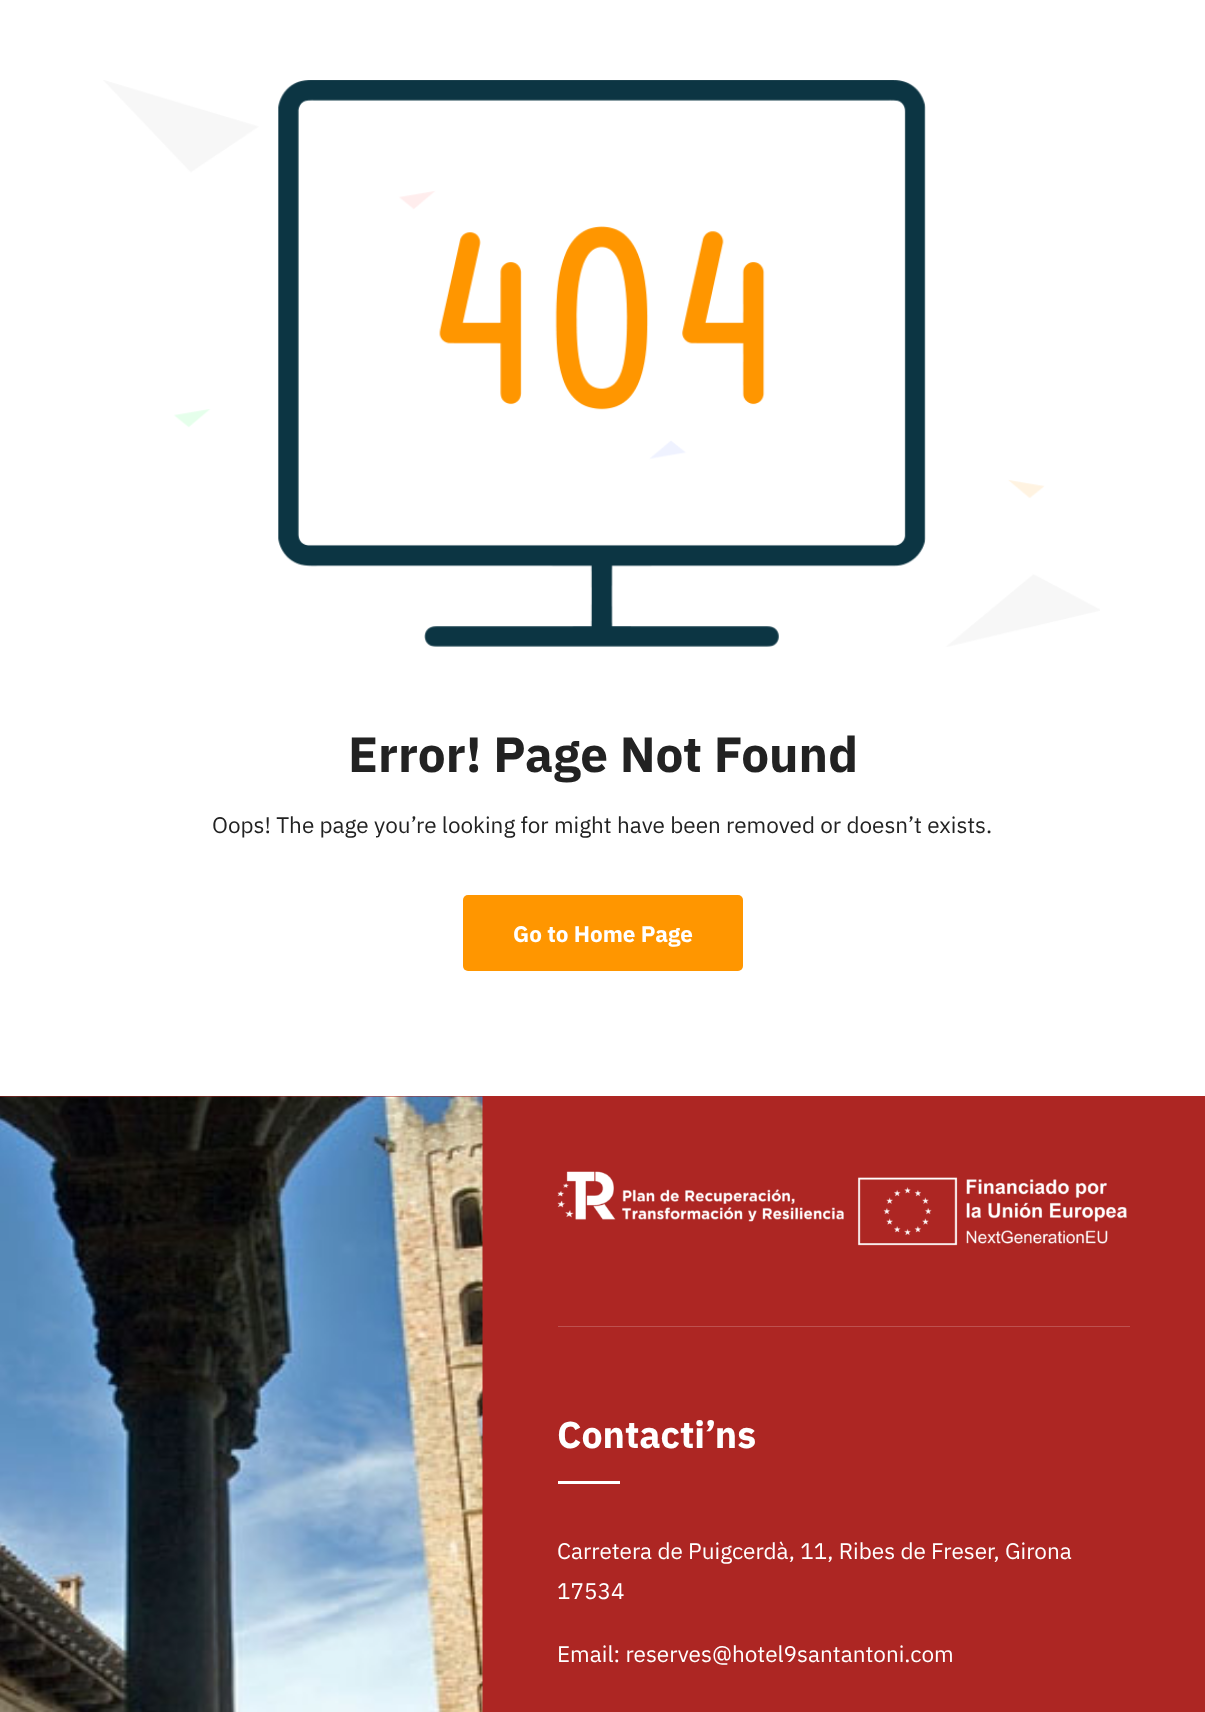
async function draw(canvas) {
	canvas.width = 1205;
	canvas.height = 1712;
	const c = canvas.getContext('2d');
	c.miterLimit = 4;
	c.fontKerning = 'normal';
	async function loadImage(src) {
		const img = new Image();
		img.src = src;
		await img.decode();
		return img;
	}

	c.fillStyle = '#fff';
	c.fillRect(0, 0, 1205, 1712);
	c.drawImage(await loadImage('img1.png'), 103, 80, 997, 567);
	c.font = 'bold 49.5px IBM Plex Sans';
	c.fillStyle = '#222';
	c.fillText('Error! Page Not Found', 348, 772);
	c.font = '22.5px IBM Plex Sans';
	c.fillText('Oops! The page you’re looking for might have been removed or doesn’t exists.', 212, 833);
	c.fillStyle = '#ff9600';
	c.beginPath();
	c.roundRect(463, 895, 280, 76, 5);
	c.fill();
	c.font = 'bold 22.5px IBM Plex Sans';
	c.fillStyle = '#fff';
	c.fillText('Go to Home Page', 513, 942);
	c.fillStyle = '#ad2623';
	c.fillRect(0, 1096, 1205, 616);
	c.drawImage(await loadImage('img2.png'), 0, 1096, 483, 616);
	c.drawImage(await loadImage('img3.png'), 557, 1171, 287, 51);
	c.drawImage(await loadImage('img4.png'), 857, 1177, 270, 69);
	c.fillStyle = '#bd514f';
	c.fillRect(558, 1326, 572, 1);
	c.font = 'bold 37.5px IBM Plex Sans';
	c.fillStyle = '#fff';
	c.fillText('Contacti’ns', 557, 1448);
	c.fillRect(558, 1481, 62, 3);
	c.font = '22.5px IBM Plex Sans';
	for (const [text, x, y] of [
		['Carretera de Puigcerdà, 11, Ribes de Freser, Girona', 557, 1559],
		['17534', 557, 1599],
		['Email: reserves@hotel9santantoni.com', 557, 1662],
	]) {
		c.fillText(text, x, y);
	}
}

draw(document.querySelector('canvas'));
